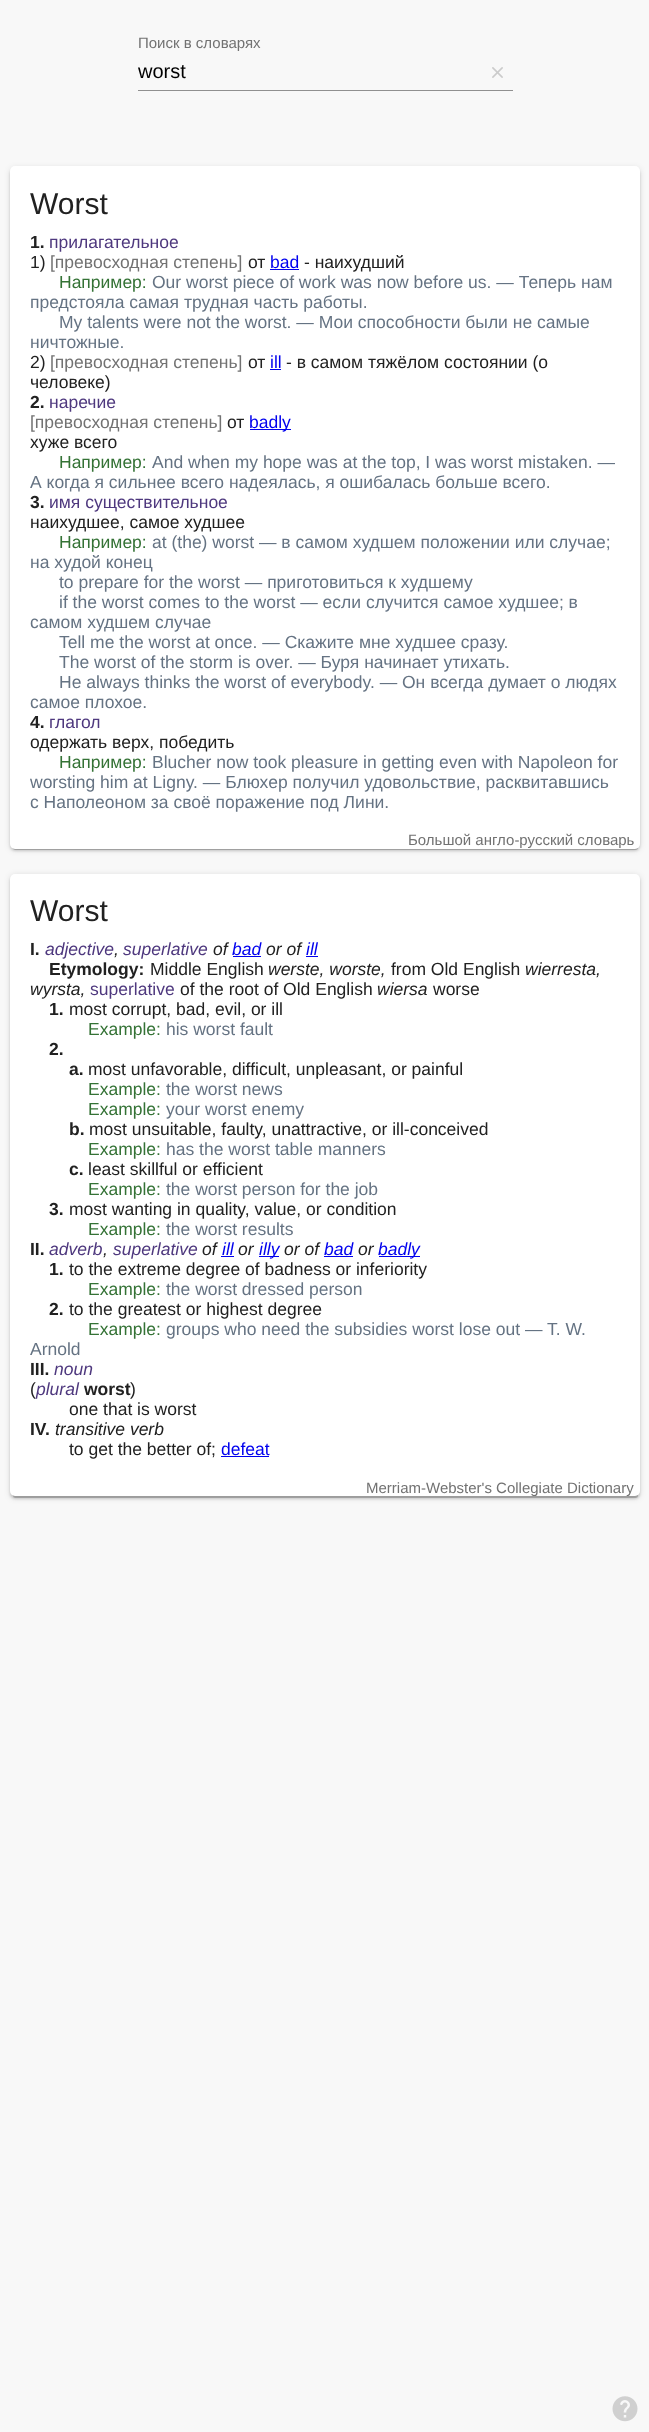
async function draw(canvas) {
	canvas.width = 649;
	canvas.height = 2432;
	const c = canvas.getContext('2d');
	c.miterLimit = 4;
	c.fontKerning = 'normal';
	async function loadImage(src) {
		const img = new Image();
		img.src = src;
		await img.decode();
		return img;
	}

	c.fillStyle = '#f8f8f8';
	c.fillRect(0, 0, 649, 2432);
	c.font = '15px Liberation Sans';
	c.fillStyle = '#727272';
	c.fillText('Поиск в словарях', 138, 48);
	c.font = '20px Liberation Sans';
	c.fillStyle = '#000';
	c.fillText('worst', 138, 78);
	c.drawImage(await loadImage('img1.png'), 492, 67, 11, 11);
	c.fillStyle = '#909090';
	c.fillRect(138, 90, 375, 1);
	c.fillStyle = '#0000001f';
	c.filter = 'blur(3px)';
	c.beginPath();
	c.roundRect(10, 168, 630, 682, 5);
	c.fill();
	c.filter = 'none';
	c.fillStyle = '#00000024';
	c.filter = 'blur(1px)';
	c.beginPath();
	c.roundRect(10, 169, 630, 682, 5);
	c.fill();
	c.filter = 'none';
	c.fillStyle = '#00000033';
	c.filter = 'blur(0.5px)';
	c.beginPath();
	c.roundRect(13, 173, 625, 677, 2.5);
	c.fill();
	c.filter = 'none';
	c.fillStyle = '#fff';
	c.beginPath();
	c.roundRect(10, 166, 630, 683, 5);
	c.fill();
	c.font = '30px Liberation Sans';
	c.fillStyle = '#212121';
	c.fillText('Worst', 30, 214);
	c.font = 'bold 17.5px Liberation Sans';
	c.fillText('1.', 30, 248);
	c.font = '17.5px Liberation Sans';
	c.fillStyle = '#4e387e';
	c.fillText('прилагательное', 49, 248);
	c.fillStyle = '#212121';
	c.fillText('1)', 30, 268);
	c.fillStyle = '#727272';
	c.fillText('[превосходная степень]', 50, 268);
	c.fillStyle = '#212121';
	c.fillText('от', 248, 268);
	c.fillStyle = '#00e';
	c.fillText('bad', 270, 268);
	c.fillRect(270, 269, 29, 1);
	c.fillStyle = '#212121';
	c.fillText('- наихудший', 304, 268);
	c.fillStyle = '#347235';
	c.fillText('Например:', 59, 288);
	c.fillStyle = '#657383';
	for (const [text, x, y] of [
		['Our worst piece of work was now before us. — Теперь нам', 152, 288],
		['предстояла самая трудная часть работы.', 30, 308],
		['My talents were not the worst. — Мои способности были не самые', 59, 328],
		['ничтожные.', 30, 348],
	]) {
		c.fillText(text, x, y);
	}
	c.fillStyle = '#212121';
	c.fillText('2)', 30, 368);
	c.fillStyle = '#727272';
	c.fillText('[превосходная степень]', 50, 368);
	c.fillStyle = '#212121';
	c.fillText('от', 248, 368);
	c.fillStyle = '#00e';
	c.fillText('ill', 270, 368);
	c.fillRect(270, 369, 11, 1);
	c.fillStyle = '#212121';
	c.fillText('- в самом тяжёлом состоянии (о', 286, 368);
	c.fillText('человеке)', 30, 388);
	c.font = 'bold 17.5px Liberation Sans';
	c.fillText('2.', 30, 408);
	c.font = '17.5px Liberation Sans';
	c.fillStyle = '#4e387e';
	c.fillText('наречие', 49, 408);
	c.fillStyle = '#727272';
	c.fillText('[превосходная степень]', 30, 428);
	c.fillStyle = '#212121';
	c.fillText('от', 227, 428);
	c.fillStyle = '#00e';
	c.fillRect(250, 429, 41, 1);
	c.fillText('badly', 249, 428);
	c.fillStyle = '#212121';
	c.fillText('хуже всего', 30, 448);
	c.fillStyle = '#347235';
	c.fillText('Например:', 59, 468);
	c.fillStyle = '#657383';
	c.fillText('And when my hope was at the top, I was worst mistaken. —', 152, 468);
	c.fillText('А когда я сильнее всего надеялась, я ошибалась больше всего.', 30, 488);
	c.font = 'bold 17.5px Liberation Sans';
	c.fillStyle = '#212121';
	c.fillText('3.', 30, 508);
	c.font = '17.5px Liberation Sans';
	c.fillStyle = '#4e387e';
	c.fillText('имя существительное', 49, 508);
	c.fillStyle = '#212121';
	c.fillText('наихудшее, самое худшее', 30, 528);
	c.fillStyle = '#347235';
	c.fillText('Например:', 59, 548);
	c.fillStyle = '#657383';
	for (const [text, x, y] of [
		['at (the) worst — в самом худшем положении или случае;', 152, 548],
		['на худой конец', 30, 568],
		['to prepare for the worst — приготовиться к худшему', 59, 588],
		['if the worst comes to the worst — если случится самое худшее; в', 59, 608],
		['самом худшем случае', 30, 628],
		['Tell me the worst at once. — Скажите мне худшее сразу.', 59, 648],
		['The worst of the storm is over. — Буря начинает утихать.', 59, 668],
		['He always thinks the worst of everybody. — Он всегда думает о людях', 59, 688],
		['самое плохое.', 30, 708],
	]) {
		c.fillText(text, x, y);
	}
	c.font = 'bold 17.5px Liberation Sans';
	c.fillStyle = '#212121';
	c.fillText('4.', 30, 728);
	c.font = '17.5px Liberation Sans';
	c.fillStyle = '#4e387e';
	c.fillText('глагол', 49, 728);
	c.fillStyle = '#212121';
	c.fillText('одержать верх, победить', 30, 748);
	c.fillStyle = '#347235';
	c.fillText('Например:', 59, 768);
	c.fillStyle = '#657383';
	for (const [text, x, y] of [
		['Blucher now took pleasure in getting even with Napoleon for', 152, 768],
		['worsting him at Ligny. — Блюхер получил удовольствие, расквитавшись', 30, 788],
		['с Наполеоном за своё поражение под Лини.', 30, 808],
	]) {
		c.fillText(text, x, y);
	}
	c.font = '15px Liberation Sans';
	c.fillStyle = '#727272';
	c.fillText('Большой англо-русский словарь', 408, 845);
	c.fillStyle = '#0000001f';
	c.filter = 'blur(3px)';
	c.beginPath();
	c.roundRect(10, 875, 630, 623, 5);
	c.fill();
	c.filter = 'none';
	c.fillStyle = '#00000024';
	c.filter = 'blur(1px)';
	c.beginPath();
	c.roundRect(10, 876, 630, 623, 5);
	c.fill();
	c.filter = 'none';
	c.fillStyle = '#00000033';
	c.filter = 'blur(0.5px)';
	c.beginPath();
	c.roundRect(13, 880, 625, 618, 2.5);
	c.fill();
	c.filter = 'none';
	c.fillStyle = '#fff';
	c.beginPath();
	c.roundRect(10, 874, 630, 622, 5);
	c.fill();
	c.font = '30px Liberation Sans';
	c.fillStyle = '#212121';
	c.fillText('Worst', 30, 921);
	c.font = 'bold 17.5px Liberation Sans';
	c.fillText('I.', 30, 955);
	c.font = 'italic 17.5px Liberation Sans';
	c.fillStyle = '#4e387e';
	c.fillText('adjective', 45, 955);
	c.fillText('superlative', 123, 955);
	c.fillStyle = '#212121';
	c.fillText('of', 213, 955);
	c.fillStyle = '#00e';
	c.fillText('bad', 232, 955);
	c.fillRect(233, 956, 28, 1);
	c.fillStyle = '#212121';
	c.fillText('or of', 266, 955);
	c.fillStyle = '#00e';
	c.fillText('ill', 306, 955);
	c.fillRect(306, 956, 12, 1);
	c.fillStyle = '#212121';
	c.fillText(',', 114, 955);
	c.font = 'bold 17.5px Liberation Sans';
	c.fillText('Etymology:', 49, 975);
	c.font = '17.5px Liberation Sans';
	c.fillText('Middle English', 150, 975);
	c.font = 'italic 17.5px Liberation Sans';
	c.fillText('werste, worste,', 268, 975);
	c.font = '17.5px Liberation Sans';
	c.fillText('from Old English', 391, 975);
	c.font = 'italic 17.5px Liberation Sans';
	c.fillText('wierresta,', 525, 975);
	c.fillText('wyrsta,', 30, 995);
	c.font = '17.5px Liberation Sans';
	c.fillStyle = '#4e387e';
	c.fillText('superlative', 90, 995);
	c.fillStyle = '#212121';
	c.fillText('of the root of Old English', 180, 995);
	c.font = 'italic 17.5px Liberation Sans';
	c.fillText('wiersa', 377, 995);
	c.font = '17.5px Liberation Sans';
	c.fillText('worse', 433, 995);
	c.font = 'bold 17.5px Liberation Sans';
	c.fillText('1.', 49, 1015);
	c.font = '17.5px Liberation Sans';
	c.fillText('most corrupt, bad, evil, or ill', 69, 1015);
	c.fillStyle = '#347235';
	c.fillText('Example:', 88, 1035);
	c.fillStyle = '#657383';
	c.fillText('his worst fault', 166, 1035);
	c.font = 'bold 17.5px Liberation Sans';
	c.fillStyle = '#212121';
	c.fillText('2.', 49, 1055);
	c.fillText('a.', 69, 1075);
	c.font = '17.5px Liberation Sans';
	c.fillText('most unfavorable, difficult, unpleasant, or painful', 88, 1075);
	c.fillStyle = '#347235';
	c.fillText('Example:', 88, 1095);
	c.fillStyle = '#657383';
	c.fillText('the worst news', 166, 1095);
	c.fillStyle = '#347235';
	c.fillText('Example:', 88, 1115);
	c.fillStyle = '#657383';
	c.fillText('your worst enemy', 166, 1115);
	c.font = 'bold 17.5px Liberation Sans';
	c.fillStyle = '#212121';
	c.fillText('b.', 69, 1135);
	c.font = '17.5px Liberation Sans';
	c.fillText('most unsuitable, faulty, unattractive, or ill-conceived', 89, 1135);
	c.fillStyle = '#347235';
	c.fillText('Example:', 88, 1155);
	c.fillStyle = '#657383';
	c.fillText('has the worst table manners', 166, 1155);
	c.font = 'bold 17.5px Liberation Sans';
	c.fillStyle = '#212121';
	c.fillText('c.', 69, 1175);
	c.font = '17.5px Liberation Sans';
	c.fillText('least skillful or efficient', 88, 1175);
	c.fillStyle = '#347235';
	c.fillText('Example:', 88, 1195);
	c.fillStyle = '#657383';
	c.fillText('the worst person for the job', 166, 1195);
	c.font = 'bold 17.5px Liberation Sans';
	c.fillStyle = '#212121';
	c.fillText('3.', 49, 1215);
	c.font = '17.5px Liberation Sans';
	c.fillText('most wanting in quality, value, or condition', 69, 1215);
	c.fillStyle = '#347235';
	c.fillText('Example:', 88, 1235);
	c.fillStyle = '#657383';
	c.fillText('the worst results', 166, 1235);
	c.font = 'bold 17.5px Liberation Sans';
	c.fillStyle = '#212121';
	c.fillText('II.', 30, 1255);
	c.font = 'italic 17.5px Liberation Sans';
	c.fillStyle = '#4e387e';
	c.fillText('adverb', 49, 1255);
	c.fillStyle = '#212121';
	c.fillText(',', 103, 1255);
	c.fillStyle = '#4e387e';
	c.fillText('superlative', 113, 1255);
	c.fillStyle = '#212121';
	c.fillText('of', 202, 1255);
	c.fillStyle = '#00e';
	c.fillText('ill', 222, 1255);
	c.fillRect(221, 1256, 13, 1);
	c.fillStyle = '#212121';
	c.fillText('or', 238, 1255);
	c.fillStyle = '#00e';
	c.fillRect(259, 1256, 20, 1);
	c.fillText('illy', 259, 1255);
	c.fillStyle = '#212121';
	c.fillText('or of', 284, 1255);
	c.fillStyle = '#00e';
	c.fillText('bad', 324, 1255);
	c.fillRect(324, 1256, 29, 1);
	c.fillStyle = '#212121';
	c.fillText('or', 358, 1255);
	c.fillStyle = '#00e';
	c.fillRect(379, 1256, 41, 1);
	c.fillText('badly', 378, 1255);
	c.font = 'bold 17.5px Liberation Sans';
	c.fillStyle = '#212121';
	c.fillText('1.', 49, 1275);
	c.font = '17.5px Liberation Sans';
	c.fillText('to the extreme degree of badness or inferiority', 69, 1275);
	c.fillStyle = '#347235';
	c.fillText('Example:', 88, 1295);
	c.fillStyle = '#657383';
	c.fillText('the worst dressed person', 166, 1295);
	c.font = 'bold 17.5px Liberation Sans';
	c.fillStyle = '#212121';
	c.fillText('2.', 49, 1315);
	c.font = '17.5px Liberation Sans';
	c.fillText('to the greatest or highest degree', 69, 1315);
	c.fillStyle = '#347235';
	c.fillText('Example:', 88, 1335);
	c.fillStyle = '#657383';
	c.fillText('groups who need the subsidies worst lose out — T. W.', 166, 1335);
	c.fillText('Arnold', 30, 1355);
	c.font = 'bold 17.5px Liberation Sans';
	c.fillStyle = '#212121';
	c.fillText('III.', 30, 1375);
	c.font = 'italic 17.5px Liberation Sans';
	c.fillStyle = '#4e387e';
	c.fillText('noun', 54, 1375);
	c.font = '17.5px Liberation Sans';
	c.fillStyle = '#212121';
	c.fillText('(', 30, 1395);
	c.font = 'italic 17.5px Liberation Sans';
	c.fillStyle = '#4e387e';
	c.fillText('plural', 36, 1395);
	c.font = 'bold 17.5px Liberation Sans';
	c.fillStyle = '#212121';
	c.fillText('worst', 84, 1395);
	c.font = '17.5px Liberation Sans';
	c.fillText(')', 130, 1395);
	c.fillText('one that is worst', 69, 1415);
	c.font = 'bold 17.5px Liberation Sans';
	c.fillText('IV.', 30, 1435);
	c.font = 'italic 17.5px Liberation Sans';
	c.fillText('transitive verb', 55, 1435);
	c.font = '17.5px Liberation Sans';
	c.fillText('to get the better of;', 69, 1455);
	c.fillStyle = '#00e';
	c.fillText('defeat', 221, 1455);
	c.fillRect(221, 1456, 48, 1);
	c.font = '15px Liberation Sans';
	c.fillStyle = '#727272';
	c.fillText('Merriam-Webster\'s Collegiate Dictionary', 366, 1493);
	c.drawImage(await loadImage('img2.png'), 612, 2396, 26, 26);
}

draw(document.querySelector('canvas'));
